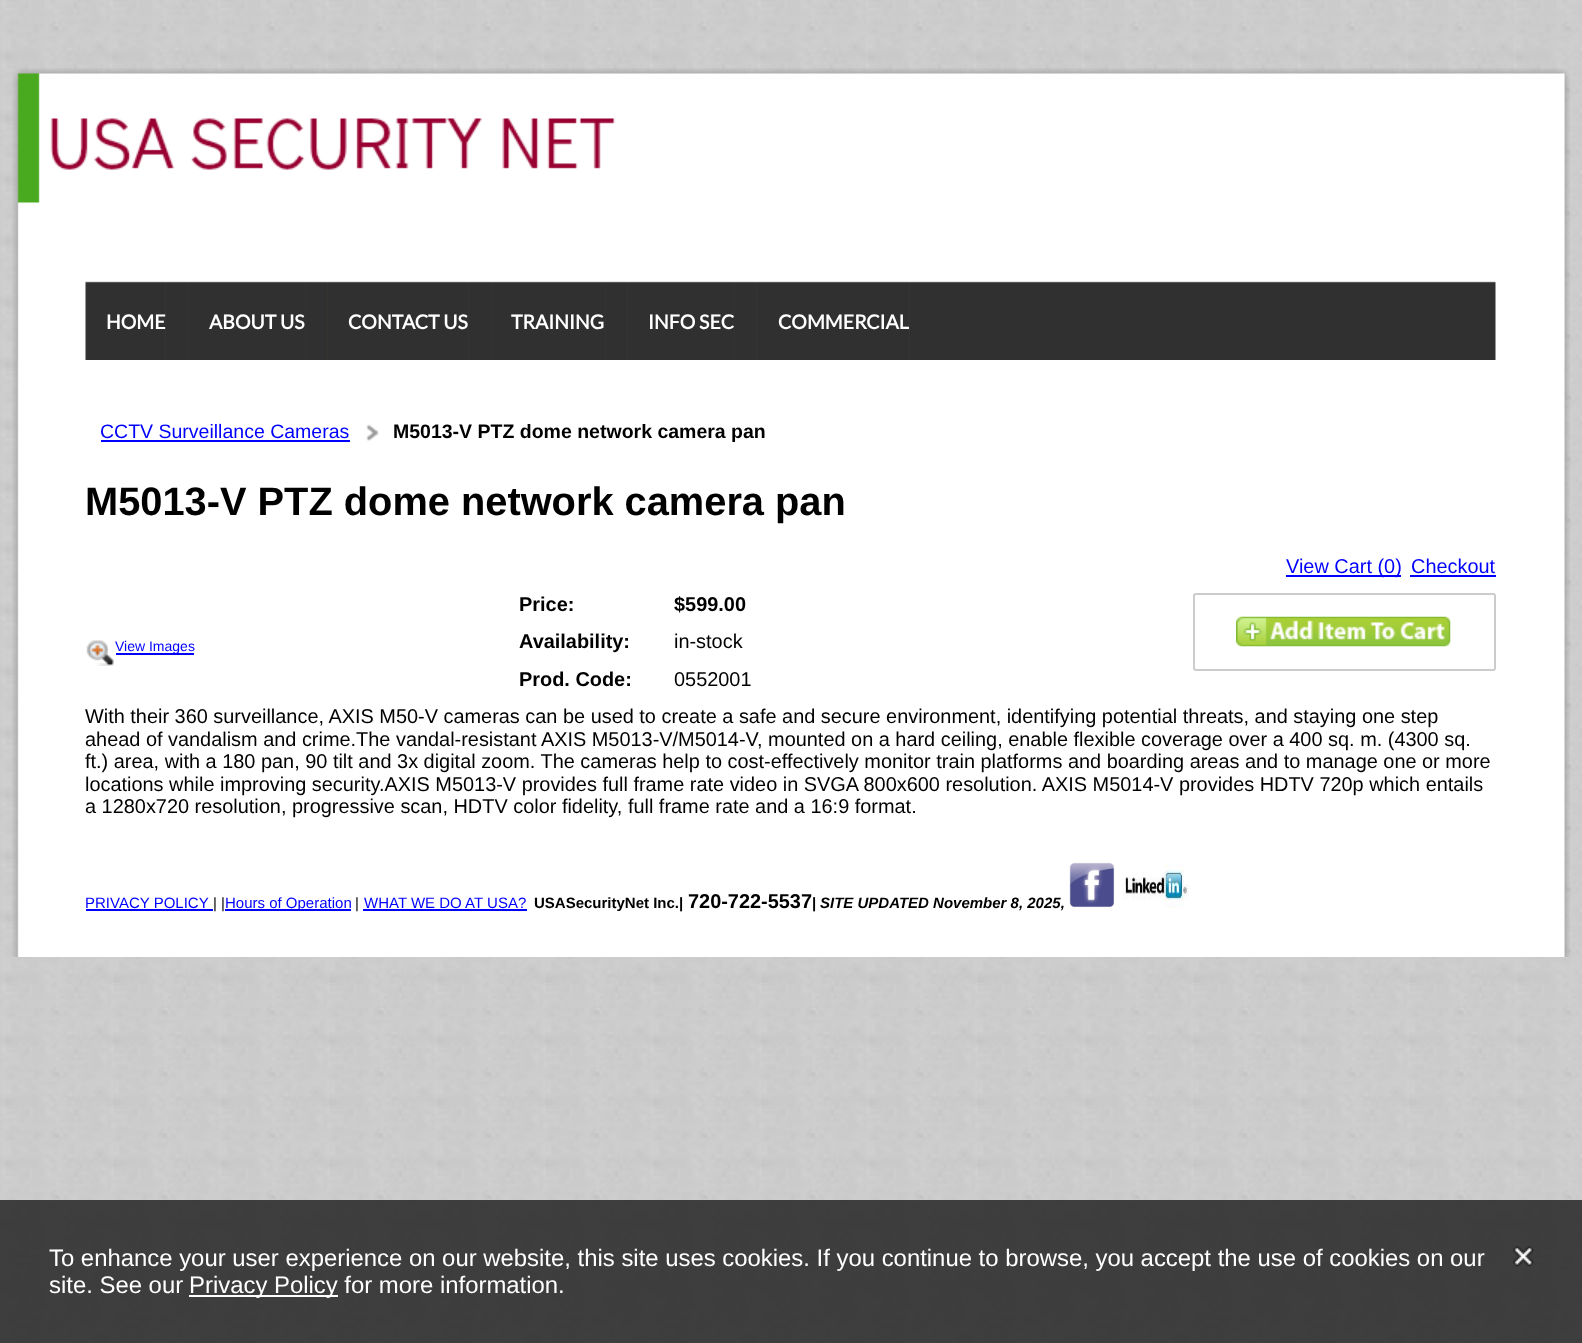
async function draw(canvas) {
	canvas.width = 1582;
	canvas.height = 1343;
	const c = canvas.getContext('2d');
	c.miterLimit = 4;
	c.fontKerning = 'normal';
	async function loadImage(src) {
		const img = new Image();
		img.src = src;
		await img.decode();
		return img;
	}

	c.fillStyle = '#fff';
	c.fillRect(0, 0, 1582, 1343);
	c.drawImage(await loadImage('img1.png'), 0, 0, 1582, 1343);
	c.drawImage(await loadImage('img2.png'), 12, 360, 1558, 597);
	c.drawImage(await loadImage('img3.png'), 12, 0, 1559, 360);
	c.drawImage(await loadImage('img4.png'), 12, 68, 1558, 292);
	c.fillStyle = '#31352f';
	c.fillRect(86, 283, 1, 77);
	c.font = 'bold 19.5px Lato';
	c.fillStyle = '#fff';
	c.fillText('HOME', 106, 329);
	c.fillStyle = '#44aa220f';
	c.fillRect(165, 282, 1, 78);
	c.fillStyle = '#31352f';
	c.fillRect(188, 283, 1, 77);
	c.fillStyle = '#fff';
	c.fillText('ABOUT US', 209, 329);
	c.fillStyle = '#31352f';
	c.fillRect(305, 283, 1, 77);
	c.fillStyle = '#44aa220f';
	c.fillRect(327, 282, 1, 78);
	c.fillStyle = '#fff';
	c.fillText('CONTACT US', 348, 329);
	c.fillStyle = '#44aa220f';
	c.fillRect(468, 282, 1, 78);
	c.fillStyle = '#31352f';
	c.fillRect(491, 283, 1, 77);
	c.fillStyle = '#fff';
	c.fillText('TRAINING', 511, 329);
	c.fillStyle = '#31352f';
	c.fillRect(605, 283, 1, 77);
	c.fillStyle = '#44aa220f';
	c.fillRect(627, 282, 1, 78);
	c.fillStyle = '#fff';
	c.fillText('INFO SEC', 648, 329);
	c.fillStyle = '#31352f';
	c.fillRect(734, 283, 1, 77);
	c.fillStyle = '#44aa220f';
	c.fillRect(756, 282, 1, 78);
	c.fillStyle = '#fff';
	c.fillText('COMMERCIAL', 778, 329);
	c.fillStyle = '#44aa220f';
	c.fillRect(909, 282, 1, 78);
	c.font = '19.5px Liberation Sans';
	c.fillStyle = '#00f';
	c.fillText('CCTV Surveillance Cameras', 100, 438);
	c.fillRect(101, 440, 249, 2);
	c.drawImage(await loadImage('img5.png'), 366, 424, 13, 18);
	c.font = 'bold 19.5px Liberation Sans';
	c.fillStyle = '#000';
	c.fillText('M5013-V PTZ dome network camera pan', 393, 438);
	c.font = 'bold 39.8px Liberation Sans';
	c.fillText('M5013-V PTZ dome network camera pan', 85, 515);
	c.fillStyle = '#00f';
	c.fillRect(1286, 575, 115, 2);
	c.font = '19.92px Liberation Sans';
	c.fillText('View Cart (0)', 1286, 573);
	c.fillText('Checkout', 1411, 573);
	c.fillRect(1410, 575, 86, 2);
	c.beginPath();
	c.roundRect(1194, 594, 301, 76, 2);
	c.strokeStyle = '#ccc';
	c.lineWidth = 2;
	c.stroke();
	c.drawImage(await loadImage('img6.png'), 1236, 616, 215, 31);
	c.drawImage(await loadImage('img7.png'), 86, 640, 28, 26);
	c.fillRect(116, 653, 78, 2);
	c.font = '14px Liberation Sans';
	c.fillText('View Images', 115, 651);
	c.font = 'bold 19.92px Liberation Sans';
	c.fillStyle = '#000';
	for (const [text, x, y] of [
		['Price:', 519, 611],
		['$599.00', 674, 611],
		['Availability:', 519, 648],
	]) {
		c.fillText(text, x, y);
	}
	c.font = '19.92px Liberation Sans';
	c.fillText('in-stock', 674, 648);
	c.font = 'bold 19.92px Liberation Sans';
	c.fillText('Prod. Code:', 519, 686);
	c.font = '19.92px Liberation Sans';
	for (const [text, x, y] of [
		['0552001', 674, 686],
		['With their 360 surveillance, AXIS M50-V cameras can be used to create a safe and secure environment, identifying potential threats, and staying one step', 85, 723],
		['ahead of vandalism and crime.The vandal-resistant AXIS M5013-V/M5014-V, mounted on a hard ceiling, enable flexible coverage over a 400 sq. m. (4300 sq.', 85, 746],
		['ft.) area, with a 180 pan, 90 tilt and 3x digital zoom. The cameras help to cost-effectively monitor train platforms and boarding areas and to manage one or more', 85, 768],
		['locations while improving security.AXIS M5013-V provides full frame rate video in SVGA 800x600 resolution. AXIS M5014-V provides HDTV 720p which entails', 85, 791],
		['a 1280x720 resolution, progressive scan, HDTV color fidelity, full frame rate and a 16:9 format.', 85, 813],
	]) {
		c.fillText(text, x, y);
	}
	c.font = '15px Liberation Sans';
	c.fillStyle = '#00f';
	c.fillText('PRIVACY POLICY', 85, 908);
	c.fillStyle = '#000';
	c.fillText('| |', 213, 908);
	c.fillStyle = '#00f';
	c.fillRect(86, 909, 127, 2);
	c.fillRect(225, 909, 126, 2);
	c.fillText('Hours of Operation', 225, 908);
	c.fillStyle = '#000';
	c.fillText('|', 355, 908);
	c.fillStyle = '#00f';
	c.fillText('WHAT WE DO AT USA?', 364, 908);
	c.fillRect(363, 909, 164, 2);
	c.font = 'bold 15px Liberation Sans';
	c.fillStyle = '#000';
	c.fillText('USASecurityNet Inc.|', 534, 908);
	c.font = 'bold 19.92px Liberation Sans';
	c.fillText('720-722-5537', 688, 908);
	c.font = 'bold 15px Liberation Sans';
	c.fillText('|', 812, 908);
	c.font = 'italic bold 15px Liberation Sans';
	c.fillText('SITE UPDATED November 8, 2025,', 820, 908);
	c.drawImage(await loadImage('img8.png'), 1069, 862, 46, 46);
	c.drawImage(await loadImage('img9.png'), 1122, 863, 67, 45);
	c.fillStyle = '#242424d9';
	c.fillRect(0, 1200, 1582, 143);
	c.font = '23.9px Liberation Sans';
	c.fillStyle = '#fff';
	c.fillText('To enhance your user experience on our website, this site uses cookies. If you continue to browse, you accept the use of cookies on our', 49, 1266);
	c.drawImage(await loadImage('img10.png'), 1513, 1246, 21, 21);
	c.fillText('site. See our', 49, 1293);
	c.fillRect(189, 1295, 149, 2);
	c.fillText('Privacy Policy for more information.', 189, 1293);
}

draw(document.querySelector('canvas'));
